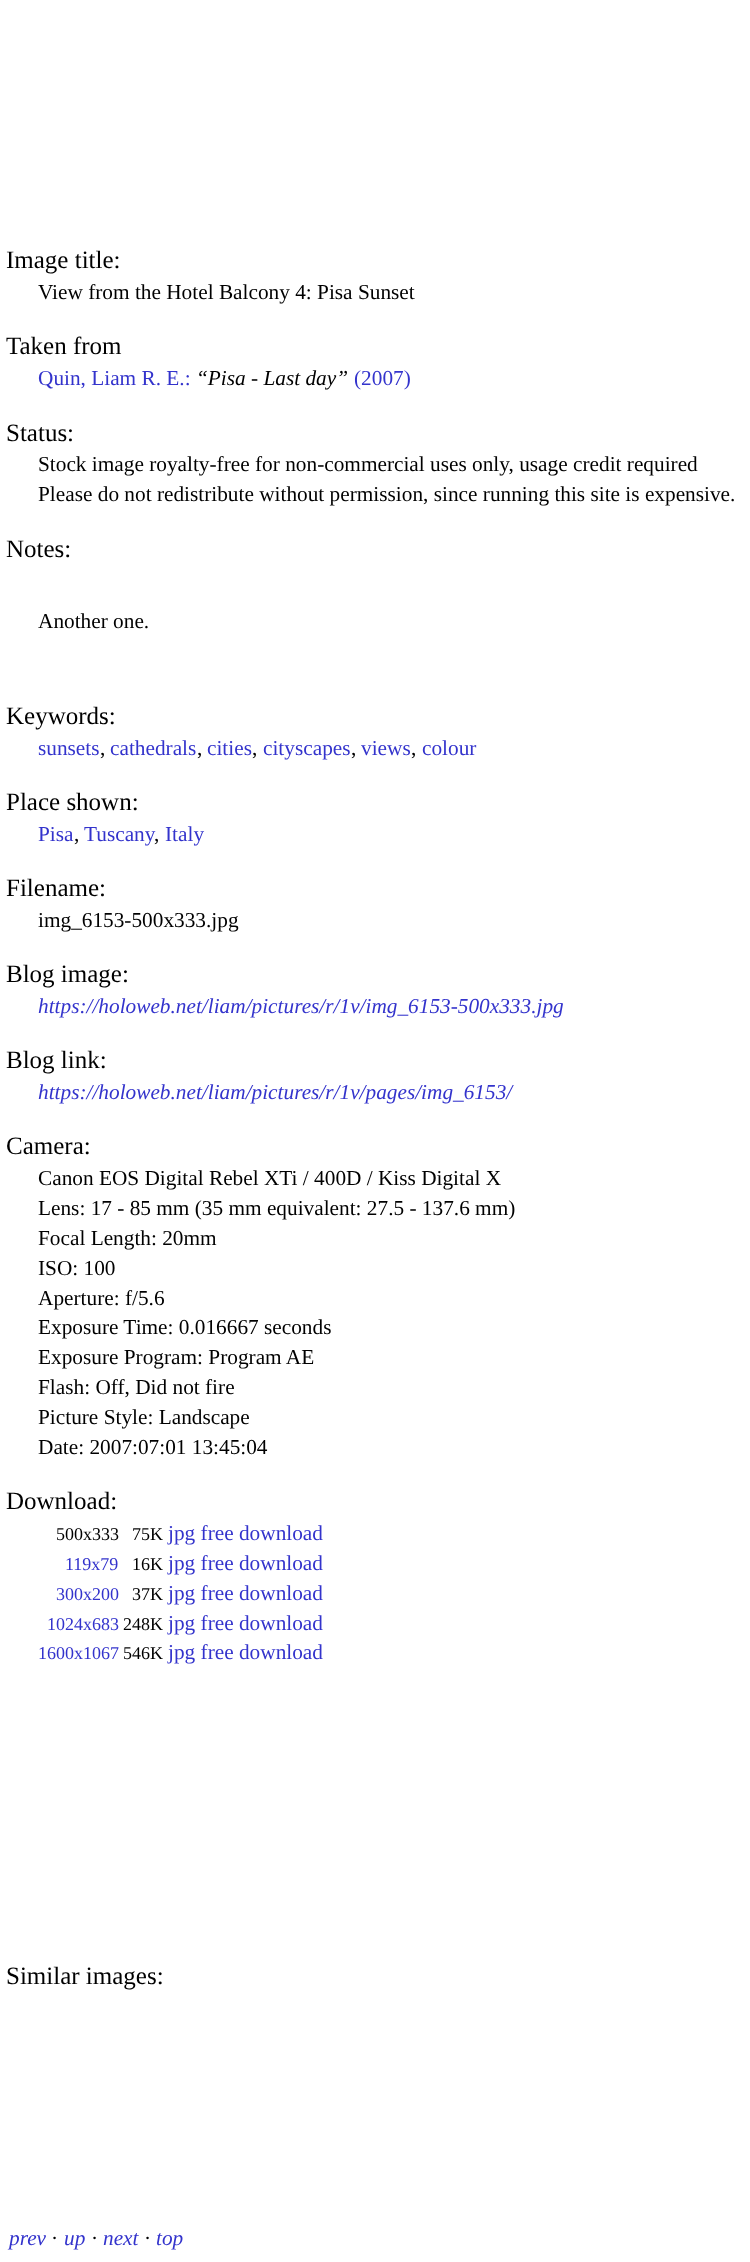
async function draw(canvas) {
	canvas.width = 750;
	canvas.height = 2262;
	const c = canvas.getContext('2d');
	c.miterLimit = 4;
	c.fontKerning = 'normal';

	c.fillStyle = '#fff';
	c.fillRect(0, 0, 750, 2262);
	c.font = '25px Liberation Serif';
	c.fillStyle = '#000';
	c.fillText('Image title:', 6, 268);
	c.font = '21.3px Liberation Serif';
	c.fillText('View from the Hotel Balcony 4: Pisa Sunset', 38, 299);
	c.font = '25px Liberation Serif';
	c.fillText('Taken from', 6, 354);
	c.font = '21.3px Liberation Serif';
	c.fillStyle = '#33c';
	c.fillText('Quin, Liam R. E.:', 38, 385);
	c.font = 'italic 21.3px Liberation Serif';
	c.fillStyle = '#000';
	c.fillText('“Pisa - Last day”', 196, 385);
	c.font = '21.3px Liberation Serif';
	c.fillStyle = '#33c';
	c.fillText('(2007)', 354, 385);
	c.font = '25px Liberation Serif';
	c.fillStyle = '#000';
	c.fillText('Status:', 6, 441);
	c.font = '21.3px Liberation Serif';
	c.fillText('Stock image royalty-free for non-commercial uses only, usage credit required', 38, 471);
	c.fillText('Please do not redistribute without permission, since running this site is expensive.', 38, 501);
	c.font = '25px Liberation Serif';
	c.fillText('Notes:', 6, 557);
	c.font = '21.3px Liberation Serif';
	c.fillText('Another one.', 38, 628);
	c.font = '25px Liberation Serif';
	c.fillText('Keywords:', 6, 724);
	c.font = '21.3px Liberation Serif';
	c.fillStyle = '#33c';
	c.fillText('sunsets', 38, 755);
	c.fillStyle = '#000';
	c.fillText(',', 100, 755);
	c.fillStyle = '#33c';
	c.fillText('cathedrals', 110, 755);
	c.fillStyle = '#000';
	c.fillText(',', 197, 755);
	c.fillStyle = '#33c';
	c.fillText('cities', 207, 755);
	c.fillStyle = '#000';
	c.fillText(',', 252, 755);
	c.fillStyle = '#33c';
	c.fillText('cityscapes', 263, 755);
	c.fillStyle = '#000';
	c.fillText(',', 351, 755);
	c.fillStyle = '#33c';
	c.fillText('views', 361, 755);
	c.fillStyle = '#000';
	c.fillText(',', 411, 755);
	c.fillStyle = '#33c';
	c.fillText('colour', 422, 755);
	c.font = '25px Liberation Serif';
	c.fillStyle = '#000';
	c.fillText('Place shown:', 6, 810);
	c.font = '21.3px Liberation Serif';
	c.fillStyle = '#33c';
	c.fillText('Pisa', 38, 841);
	c.fillStyle = '#000';
	c.fillText(',', 74, 841);
	c.fillStyle = '#33c';
	c.fillText('Tuscany', 84, 841);
	c.fillText('Italy', 165, 841);
	c.fillStyle = '#000';
	c.fillText(',', 154, 841);
	c.font = '25px Liberation Serif';
	c.fillText('Filename:', 6, 896);
	c.font = '21.3px Liberation Serif';
	c.fillText('img_6153-500x333.jpg', 38, 927);
	c.font = '25px Liberation Serif';
	c.fillText('Blog image:', 6, 982);
	c.font = 'italic 21.3px Liberation Serif';
	c.fillStyle = '#33c';
	c.fillText('https://holoweb.net/liam/pictures/r/1v/img_6153-500x333.jpg', 38, 1013);
	c.font = '25px Liberation Serif';
	c.fillStyle = '#000';
	c.fillText('Blog link:', 6, 1068);
	c.font = 'italic 21.3px Liberation Serif';
	c.fillStyle = '#33c';
	c.fillText('https://holoweb.net/liam/pictures/r/1v/pages/img_6153/', 38, 1099);
	c.font = '25px Liberation Serif';
	c.fillStyle = '#000';
	c.fillText('Camera:', 6, 1154);
	c.font = '21.3px Liberation Serif';
	for (const [text, x, y] of [
		['Canon EOS Digital Rebel XTi / 400D / Kiss Digital X', 38, 1185],
		['Lens: 17 - 85 mm (35 mm equivalent: 27.5 - 137.6 mm)', 38, 1215],
		['Focal Length: 20mm', 38, 1245],
		['ISO: 100', 38, 1275],
		['Aperture: f/5.6', 38, 1305],
		['Exposure Time: 0.016667 seconds', 38, 1334],
		['Exposure Program: Program AE', 38, 1364],
		['Flash: Off, Did not fire', 38, 1394],
		['Picture Style: Landscape', 38, 1424],
		['Date: 2007:07:01 13:45:04', 38, 1454],
	]) {
		c.fillText(text, x, y);
	}
	c.font = '25px Liberation Serif';
	c.fillText('Download:', 6, 1509);
	c.font = '18px Liberation Serif';
	c.fillText('500x333', 56, 1540);
	c.fillText('75K', 132, 1540);
	c.font = '21.3px Liberation Serif';
	c.fillStyle = '#33c';
	c.fillText('jpg free download', 168, 1540);
	c.font = '18px Liberation Serif';
	c.fillText('119x79', 65, 1570);
	c.fillStyle = '#000';
	c.fillText('16K', 132, 1570);
	c.font = '21.3px Liberation Serif';
	c.fillStyle = '#33c';
	c.fillText('jpg free download', 168, 1570);
	c.font = '18px Liberation Serif';
	c.fillText('300x200', 56, 1600);
	c.fillStyle = '#000';
	c.fillText('37K', 132, 1600);
	c.font = '21.3px Liberation Serif';
	c.fillStyle = '#33c';
	c.fillText('jpg free download', 168, 1600);
	c.font = '18px Liberation Serif';
	c.fillText('1024x683', 47, 1630);
	c.fillStyle = '#000';
	c.fillText('248K', 123, 1630);
	c.font = '21.3px Liberation Serif';
	c.fillStyle = '#33c';
	c.fillText('jpg free download', 168, 1630);
	c.font = '18px Liberation Serif';
	c.fillText('1600x1067', 38, 1659);
	c.fillStyle = '#000';
	c.fillText('546K', 123, 1659);
	c.font = '21.3px Liberation Serif';
	c.fillStyle = '#33c';
	c.fillText('jpg free download', 168, 1659);
	c.font = '25px Liberation Serif';
	c.fillStyle = '#000';
	c.fillText('Similar images:', 6, 1984);
	c.font = 'italic 21.3px Liberation Serif';
	c.fillStyle = '#33c';
	c.fillText('prev', 9, 2245);
	c.font = '21.3px Liberation Serif';
	c.fillStyle = '#000';
	c.fillText('·', 51, 2245);
	c.font = 'italic 21.3px Liberation Serif';
	c.fillStyle = '#33c';
	c.fillText('up', 64, 2245);
	c.font = '21.3px Liberation Serif';
	c.fillStyle = '#000';
	c.fillText('·', 91, 2245);
	c.font = 'italic 21.3px Liberation Serif';
	c.fillStyle = '#33c';
	c.fillText('next', 103, 2245);
	c.font = '21.3px Liberation Serif';
	c.fillStyle = '#000';
	c.fillText('·', 144, 2245);
	c.font = 'italic 21.3px Liberation Serif';
	c.fillStyle = '#33c';
	c.fillText('top', 156, 2245);
}

draw(document.querySelector('canvas'));
